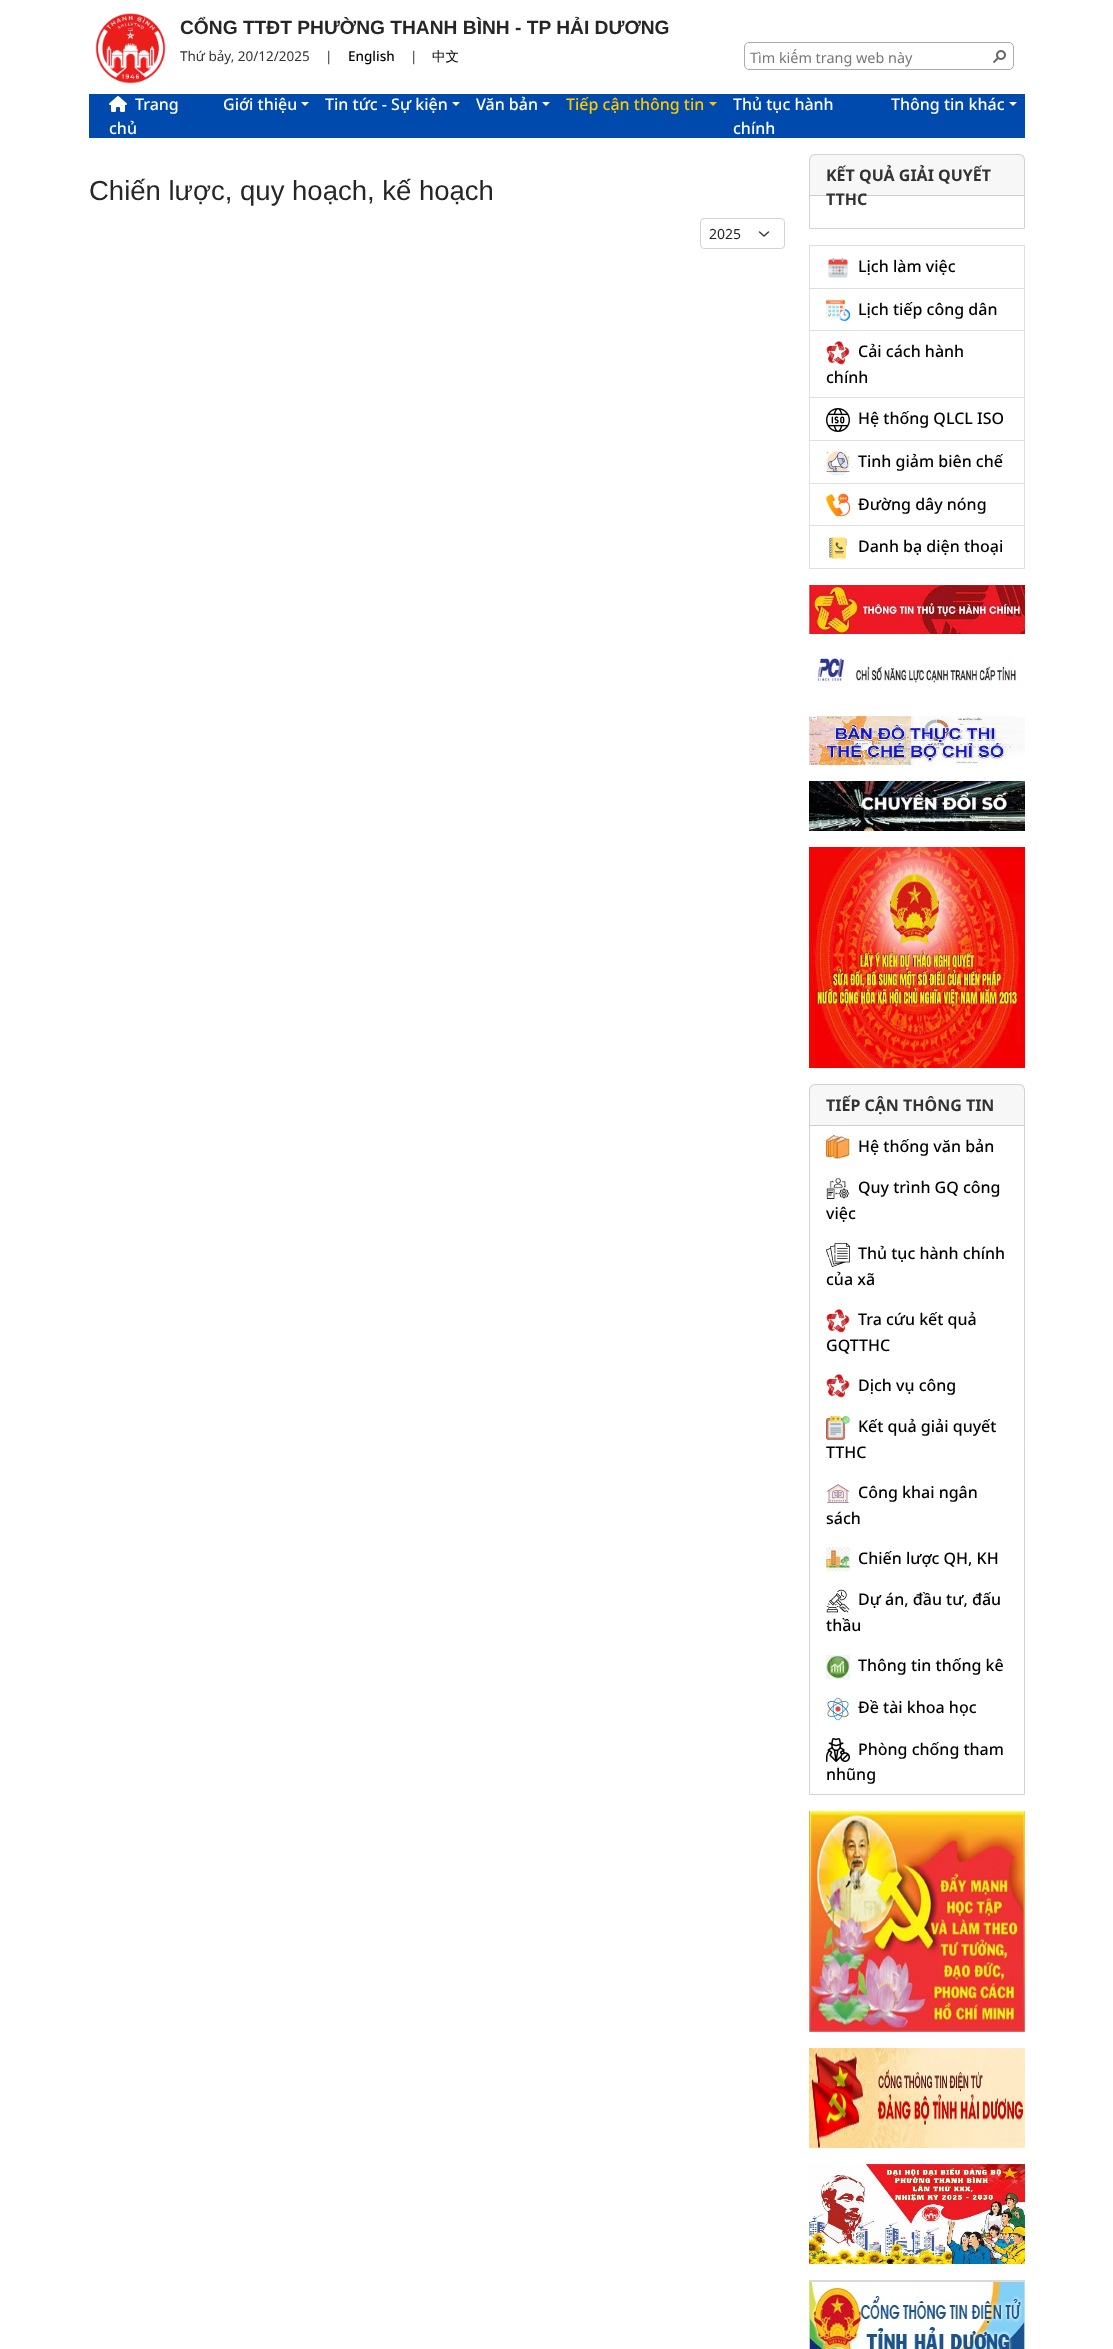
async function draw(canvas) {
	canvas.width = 1113;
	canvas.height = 2349;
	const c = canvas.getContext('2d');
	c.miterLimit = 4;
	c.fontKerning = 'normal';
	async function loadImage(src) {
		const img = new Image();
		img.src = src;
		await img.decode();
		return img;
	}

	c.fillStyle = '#fff';
	c.fillRect(0, 0, 1113, 2349);
	c.drawImage(await loadImage('img1.png'), 95, 13, 71, 71);
	c.font = 'bold 19.2px Liberation Sans';
	c.fillStyle = '#262626';
	c.fillText('CỔNG TTĐT PHƯỜNG THANH BÌNH - TP HẢI DƯƠNG', 180, 34);
	c.font = '13.5px Noto Sans';
	c.fillStyle = '#333';
	c.fillText('Thứ bảy, 20/12/2025', 180, 61);
	c.fillText('|', 325, 61);
	c.font = '500 13.5px Noto Sans';
	c.fillStyle = '#000';
	c.fillText('English', 348, 61);
	c.font = '13.5px Noto Sans';
	c.fillStyle = '#333';
	c.fillText('|', 410, 61);
	c.font = '500 13.5px WenQuanYi Zen Hei';
	c.fillStyle = '#000';
	c.fillText('中文', 432, 61);
	c.beginPath();
	c.roundRect(744.5, 42.5, 269, 27, 4.5);
	c.strokeStyle = '#ababab';
	c.stroke();
	c.font = '14.4px Noto Sans';
	c.fillStyle = '#777';
	c.fillText('Tìm kiếm trang web này', 750, 63);
	c.drawImage(await loadImage('img2.png'), 992, 50, 14, 14);
	c.fillStyle = '#004aad';
	c.fillRect(89, 94, 936, 44);
	c.drawImage(await loadImage('img3.png'), 109, 96, 18, 16);
	c.font = '500 16px Noto Sans';
	c.fillStyle = '#fff';
	for (const [text, x, y] of [
		['Trang', 135, 110],
		['chủ', 109, 134],
		['Giới thiệu', 223, 110],
	]) {
		c.fillText(text, x, y);
	}
	c.beginPath();
	c.moveTo(301, 102);
	c.lineTo(309, 102);
	c.lineTo(305, 106);
	c.closePath();
	c.fill();
	c.fillText('Tin tức - Sự kiện', 325, 110);
	c.beginPath();
	c.moveTo(452, 102);
	c.lineTo(460, 102);
	c.lineTo(456, 106);
	c.closePath();
	c.fill();
	c.fillText('Văn bản', 476, 110);
	c.beginPath();
	c.moveTo(542, 102);
	c.lineTo(550, 102);
	c.lineTo(546, 106);
	c.closePath();
	c.fill();
	c.fillStyle = '#ffc800';
	c.fillText('Tiếp cận thông tin', 566, 110);
	c.beginPath();
	c.moveTo(709, 102);
	c.lineTo(717, 102);
	c.lineTo(713, 106);
	c.closePath();
	c.fill();
	c.fillStyle = '#fff';
	for (const [text, x, y] of [
		['Thủ tục hành', 733, 110],
		['chính', 733, 134],
		['Thông tin khác', 891, 110],
	]) {
		c.fillText(text, x, y);
	}
	c.beginPath();
	c.moveTo(1009, 102);
	c.lineTo(1017, 102);
	c.lineTo(1013, 106);
	c.closePath();
	c.fill();
	c.font = '27.5px Liberation Sans';
	c.fillStyle = '#262626';
	c.fillText('Chiến lược, quy hoạch, kế hoạch', 89, 200);
	c.beginPath();
	c.moveTo(759.5, 232);
	c.lineTo(764, 236);
	c.lineTo(768.5, 232);
	c.strokeStyle = '#343a40';
	c.lineWidth = 1.5;
	c.lineCap = 'round';
	c.lineJoin = 'round';
	c.stroke();
	c.beginPath();
	c.roundRect(700.5, 218.5, 84, 30, 3.5);
	c.strokeStyle = '#ced4da';
	c.lineWidth = 1;
	c.lineJoin = 'miter';
	c.stroke();
	c.font = '14px Noto Sans';
	c.fillText('2025', 709, 239);
	c.beginPath();
	c.roundRect(809.5, 154.5, 215, 74, [5.5, 5.5, 0, 0]);
	c.strokeStyle = '#d2d2d2';
	c.stroke();
	c.fillStyle = '#00000008';
	c.fillRect(810, 155, 214, 40);
	c.fillStyle = '#ccc';
	c.fillRect(810, 195, 214, 1);
	c.font = 'bold 16px Noto Sans';
	c.fillStyle = '#333';
	c.fillText('KẾT QUẢ GIẢI QUYẾT', 826, 181);
	c.fillText('TTHC', 826, 205);
	c.strokeStyle = '#dfdfdf';
	c.strokeRect(809.5, 245.5, 215, 43);
	c.drawImage(await loadImage('img4.png'), 828, 258, 20, 20);
	c.font = '500 16px Noto Sans';
	c.fillStyle = '#000';
	c.fillText('Lịch làm việc', 858, 272);
	c.fillStyle = '#dfdfdf';
	c.beginPath();
	c.moveTo(1025, 289);
	c.lineTo(1025, 331);
	c.lineTo(1024, 330);
	c.lineTo(1024, 289);
	c.closePath();
	c.fill();
	c.fillStyle = '#0000001f';
	c.beginPath();
	c.moveTo(1025, 331);
	c.lineTo(809, 331);
	c.lineTo(810, 330);
	c.lineTo(1024, 330);
	c.closePath();
	c.fill();
	c.beginPath();
	c.moveTo(809, 331);
	c.lineTo(809, 289);
	c.lineTo(810, 289);
	c.lineTo(810, 330);
	c.closePath();
	c.fill();
	c.drawImage(await loadImage('img5.png'), 826, 299, 24, 22);
	c.fillStyle = '#000';
	c.fillText('Lịch tiếp công dân', 858, 315);
	c.fillStyle = '#dfdfdf';
	c.beginPath();
	c.moveTo(1025, 331);
	c.lineTo(1025, 398);
	c.lineTo(1024, 397);
	c.lineTo(1024, 331);
	c.closePath();
	c.fill();
	c.fillStyle = '#0000001f';
	c.beginPath();
	c.moveTo(1025, 398);
	c.lineTo(809, 398);
	c.lineTo(810, 397);
	c.lineTo(1024, 397);
	c.closePath();
	c.fill();
	c.beginPath();
	c.moveTo(809, 398);
	c.lineTo(809, 331);
	c.lineTo(810, 331);
	c.lineTo(810, 397);
	c.closePath();
	c.fill();
	c.drawImage(await loadImage('img6.png'), 826, 341, 24, 24);
	c.fillStyle = '#000';
	c.fillText('Cải cách hành', 858, 357);
	c.fillText('chính', 826, 383);
	c.fillStyle = '#dfdfdf';
	c.beginPath();
	c.moveTo(1025, 398);
	c.lineTo(1025, 441);
	c.lineTo(1024, 440);
	c.lineTo(1024, 398);
	c.closePath();
	c.fill();
	c.fillStyle = '#0000001f';
	c.beginPath();
	c.moveTo(1025, 441);
	c.lineTo(809, 441);
	c.lineTo(810, 440);
	c.lineTo(1024, 440);
	c.closePath();
	c.fill();
	c.beginPath();
	c.moveTo(809, 441);
	c.lineTo(809, 398);
	c.lineTo(810, 398);
	c.lineTo(810, 440);
	c.closePath();
	c.fill();
	c.drawImage(await loadImage('img7.png'), 826, 408, 24, 24);
	c.fillStyle = '#000';
	c.fillText('Hệ thống QLCL ISO', 858, 424);
	c.fillStyle = '#dfdfdf';
	c.beginPath();
	c.moveTo(1025, 441);
	c.lineTo(1025, 484);
	c.lineTo(1024, 483);
	c.lineTo(1024, 441);
	c.closePath();
	c.fill();
	c.fillStyle = '#0000001f';
	c.beginPath();
	c.moveTo(1025, 484);
	c.lineTo(809, 484);
	c.lineTo(810, 483);
	c.lineTo(1024, 483);
	c.closePath();
	c.fill();
	c.beginPath();
	c.moveTo(809, 484);
	c.lineTo(809, 441);
	c.lineTo(810, 441);
	c.lineTo(810, 483);
	c.closePath();
	c.fill();
	c.drawImage(await loadImage('img8.png'), 826, 451, 24, 24);
	c.fillStyle = '#000';
	c.fillText('Tinh giảm biên chế', 858, 467);
	c.fillStyle = '#dfdfdf';
	c.beginPath();
	c.moveTo(1025, 484);
	c.lineTo(1025, 526);
	c.lineTo(1024, 525);
	c.lineTo(1024, 484);
	c.closePath();
	c.fill();
	c.fillStyle = '#0000001f';
	c.beginPath();
	c.moveTo(1025, 526);
	c.lineTo(809, 526);
	c.lineTo(810, 525);
	c.lineTo(1024, 525);
	c.closePath();
	c.fill();
	c.beginPath();
	c.moveTo(809, 526);
	c.lineTo(809, 484);
	c.lineTo(810, 484);
	c.lineTo(810, 525);
	c.closePath();
	c.fill();
	c.drawImage(await loadImage('img9.png'), 826, 493, 24, 24);
	c.fillStyle = '#000';
	c.fillText('Đường dây nóng', 858, 510);
	c.fillStyle = '#dfdfdf';
	c.beginPath();
	c.moveTo(1025, 526);
	c.lineTo(1025, 569);
	c.lineTo(1024, 568);
	c.lineTo(1024, 526);
	c.closePath();
	c.fill();
	c.fillStyle = '#0000001f';
	c.beginPath();
	c.moveTo(1025, 569);
	c.lineTo(809, 569);
	c.lineTo(810, 568);
	c.lineTo(1024, 568);
	c.closePath();
	c.fill();
	c.beginPath();
	c.moveTo(809, 569);
	c.lineTo(809, 526);
	c.lineTo(810, 526);
	c.lineTo(810, 568);
	c.closePath();
	c.fill();
	c.drawImage(await loadImage('img10.png'), 829, 537, 18, 22);
	c.fillStyle = '#000';
	c.fillText('Danh bạ diện thoại', 858, 552);
	c.drawImage(await loadImage('img11.png'), 809, 585, 216, 49);
	c.drawImage(await loadImage('img12.png'), 815, 654, 202, 35);
	c.drawImage(await loadImage('img13.png'), 809, 716, 216, 49);
	c.drawImage(await loadImage('img14.png'), 809, 781, 216, 50);
	c.drawImage(await loadImage('img15.png'), 809, 847, 216, 221);
	c.beginPath();
	c.roundRect(809.5, 1084.5, 215, 710, [5.5, 5.5, 0, 0]);
	c.strokeStyle = '#d2d2d2';
	c.stroke();
	c.fillStyle = '#00000008';
	c.fillRect(810, 1085, 214, 40);
	c.fillStyle = '#ccc';
	c.fillRect(810, 1125, 214, 1);
	c.font = 'bold 16px Noto Sans';
	c.fillStyle = '#333';
	c.fillText('TIẾP CẬN THÔNG TIN', 826, 1111);
	c.drawImage(await loadImage('img16.png'), 826, 1135, 24, 24);
	c.font = '500 16px Noto Sans';
	c.fillStyle = '#000';
	c.fillText('Hệ thống văn bản', 858, 1152);
	c.drawImage(await loadImage('img17.png'), 826, 1177, 24, 22);
	c.fillText('Quy trình GQ công', 858, 1193);
	c.fillText('việc', 826, 1219);
	c.drawImage(await loadImage('img18.png'), 826, 1243, 24, 24);
	c.fillText('Thủ tục hành chính', 858, 1259);
	c.fillText('của xã', 826, 1285);
	c.drawImage(await loadImage('img6.png'), 826, 1309, 24, 24);
	c.fillText('Tra cứu kết quả', 858, 1325);
	c.fillText('GQTTHC', 826, 1351);
	c.drawImage(await loadImage('img6.png'), 826, 1374, 24, 24);
	c.fillText('Dịch vụ công', 858, 1391);
	c.drawImage(await loadImage('img19.png'), 826, 1416, 24, 24);
	c.fillText('Kết quả giải quyết', 858, 1432);
	c.fillText('TTHC', 826, 1458);
	c.drawImage(await loadImage('img20.png'), 826, 1484, 24, 19);
	c.fillText('Công khai ngân', 858, 1498);
	c.fillText('sách', 826, 1524);
	c.drawImage(await loadImage('img21.png'), 826, 1547, 24, 24);
	c.fillText('Chiến lược QH, KH', 858, 1564);
	c.drawImage(await loadImage('img22.png'), 826, 1589, 24, 24);
	c.fillText('Dự án, đầu tư, đấu', 858, 1605);
	c.fillText('thầu', 826, 1631);
	c.drawImage(await loadImage('img23.png'), 826, 1655, 24, 24);
	c.fillText('Thông tin thống kê', 858, 1671);
	c.drawImage(await loadImage('img24.png'), 827, 1697, 22, 24);
	c.fillText('Đề tài khoa học', 858, 1713);
	c.drawImage(await loadImage('img25.png'), 826, 1738, 24, 24);
	c.fillText('Phòng chống tham', 858, 1755);
	c.fillText('nhũng', 826, 1780);
	c.drawImage(await loadImage('img26.png'), 809, 1811, 216, 221);
	c.drawImage(await loadImage('img27.png'), 809, 2048, 216, 100);
	c.drawImage(await loadImage('img28.png'), 809, 2164, 216, 100);
	c.drawImage(await loadImage('img29.png'), 809, 2280, 216, 69);
}

draw(document.querySelector('canvas'));
